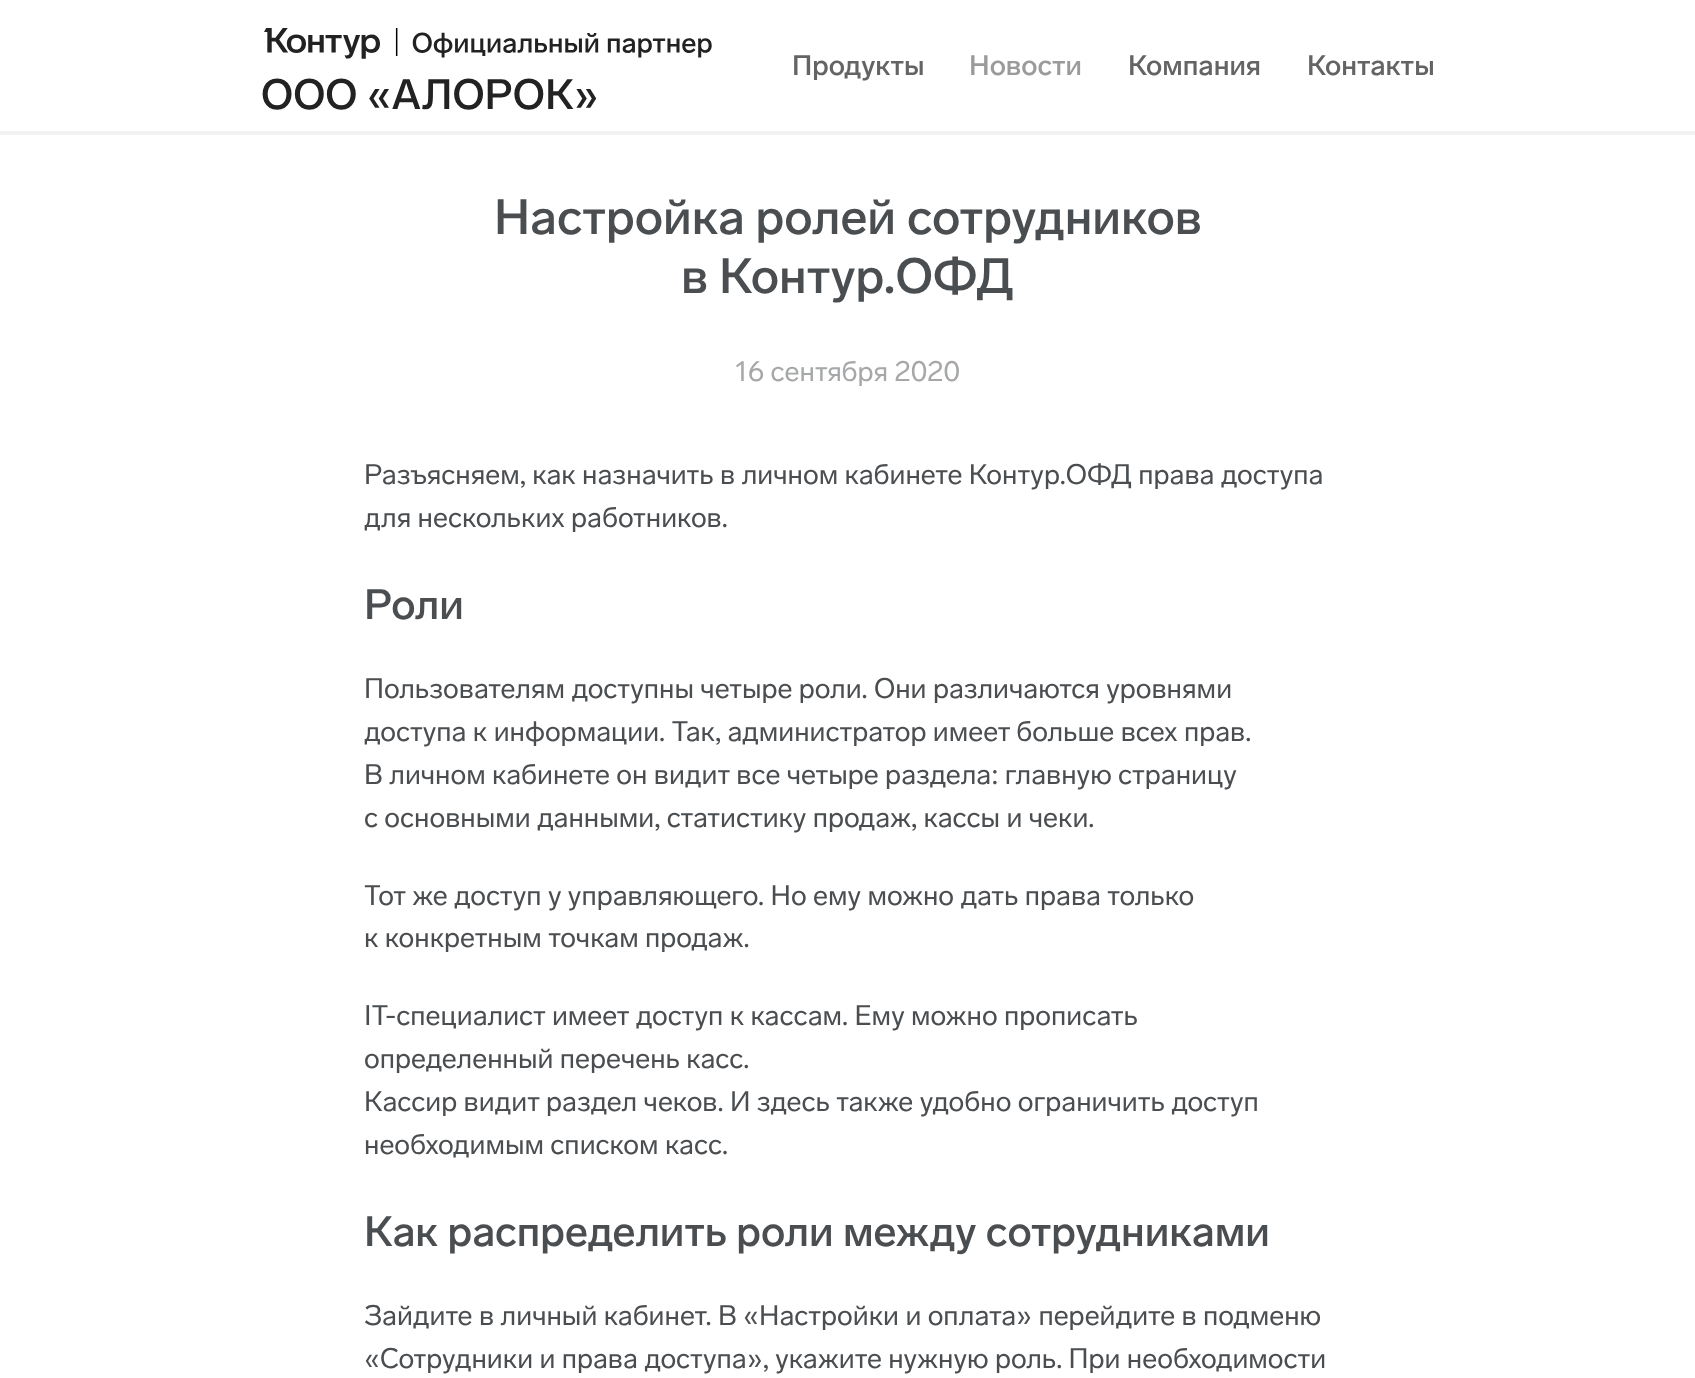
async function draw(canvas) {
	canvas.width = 1695;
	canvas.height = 1378;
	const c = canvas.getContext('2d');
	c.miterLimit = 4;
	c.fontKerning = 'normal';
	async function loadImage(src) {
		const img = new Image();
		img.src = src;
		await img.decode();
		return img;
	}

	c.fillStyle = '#fff';
	c.fillRect(0, 0, 1695, 1378);
	c.fillStyle = '#f2f2f2';
	c.fillRect(0, 131, 1695, 4);
	c.font = '500 28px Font';
	c.fillStyle = '#646464';
	c.fillText('Продукты', 792, 75);
	c.fillStyle = '#9b9b9b';
	c.fillText('Новости', 969, 75);
	c.fillStyle = '#646464';
	c.fillText('Компания', 1128, 75);
	c.fillText('Контакты', 1307, 75);
	c.drawImage(await loadImage('img1.png'), 264, 28, 448, 31);
	c.font = '500 42px Font';
	c.fillStyle = '#222';
	c.fillText('ООО «АЛОРОК»', 261, 109);
	c.font = '500 49px Font';
	c.fillStyle = '#4b4e51';
	c.fillText('Настройка ролей сотрудников', 494, 234);
	c.fillText('в Контур.ОФД', 681, 293);
	c.font = '28px Font';
	c.fillStyle = '#a5a7a8';
	c.fillText('16 сентября 2020', 735, 381);
	c.fillStyle = '#4b4e51';
	c.fillText('Разъясняем, как назначить в личном кабинете Контур.ОФД права доступа', 364, 484);
	c.fillText('для нескольких работников.', 364, 527);
	c.font = '500 42px Font';
	c.fillText('Роли', 364, 619);
	c.font = '28px Font';
	for (const [text, x, y] of [
		['Пользователям доступны четыре роли. Они различаются уровнями', 364, 698],
		['доступа к информации. Так, администратор имеет больше всех прав.', 364, 741],
		['В личном кабинете он видит все четыре раздела: главную страницу', 364, 784],
		['с основными данными, статистику продаж, кассы и чеки.', 364, 827],
		['Тот же доступ у управляющего. Но ему можно дать права только', 364, 905],
		['к конкретным точкам продаж.', 364, 947],
		['IT-специалист имеет доступ к кассам. Ему можно прописать', 364, 1025],
		['определенный перечень касс.', 364, 1068],
		['Кассир видит раздел чеков. И здесь также удобно ограничить доступ', 364, 1111],
		['необходимым списком касс.', 364, 1154],
	]) {
		c.fillText(text, x, y);
	}
	c.font = '500 42px Font';
	c.fillText('Как распределить роли между сотрудниками', 364, 1246);
	c.font = '28px Font';
	c.fillText('Зайдите в личный кабинет. В «Настройки и оплата» перейдите в подменю', 364, 1325);
	c.fillText('«Сотрудники и права доступа», укажите нужную роль. При необходимости', 364, 1368);
}

draw(document.querySelector('canvas'));
